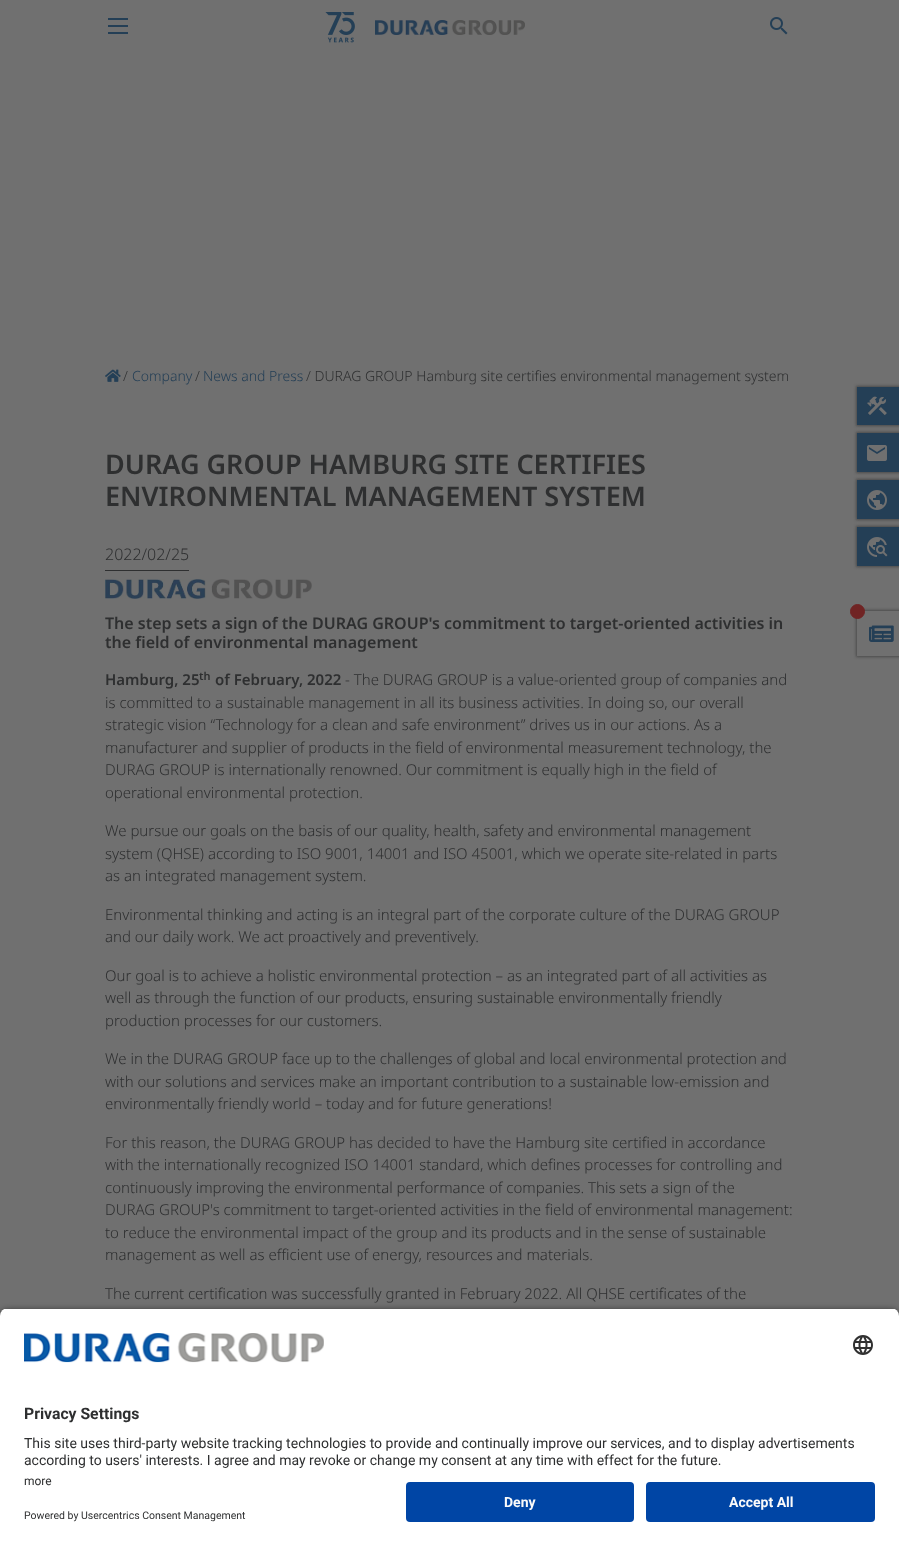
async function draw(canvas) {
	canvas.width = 899;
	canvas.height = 1546;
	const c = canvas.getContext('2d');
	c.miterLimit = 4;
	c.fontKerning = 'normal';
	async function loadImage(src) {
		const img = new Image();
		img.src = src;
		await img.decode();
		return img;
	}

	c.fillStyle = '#707070';
	c.fillRect(0, 0, 899, 1546);
	for (const [x, y, w, h, color] of [
		[108, 18, 20, 2, '#243f56'],
		[108, 25, 20, 2, '#243f56'],
		[108, 32, 20, 2, '#243f56'],
	]) {
		c.fillStyle = color;
		c.fillRect(x, y, w, h);
	}
	c.drawImage(await loadImage('img1.png'), 325, 12, 30, 31);
	c.drawImage(await loadImage('img2.png'), 375, 20, 150, 15);
	c.drawImage(await loadImage('img3.png'), 770, 17, 18, 18);
	c.drawImage(await loadImage('img4.png'), 105, 369, 16, 13);
	c.font = '300 14px Noto Sans';
	c.fillStyle = '#2e2f30';
	c.fillText('/', 123, 381);
	c.fillStyle = '#243f56';
	c.fillText('Company', 132, 381);
	c.fillStyle = '#2e2f30';
	c.fillText('/', 195, 381);
	c.fillStyle = '#243f56';
	c.fillText('News and Press', 203, 381);
	c.fillStyle = '#2e2f30';
	c.fillText('/ DURAG GROUP Hamburg site certifies environmental management system', 306, 381);
	c.font = '600 27px Noto Sans';
	c.fillText('DURAG GROUP HAMBURG SITE CERTIFIES', 105, 474);
	c.fillText('ENVIRONMENTAL MANAGEMENT SYSTEM', 105, 506);
	c.fillRect(105, 570, 84, 1);
	c.font = '300 16px Noto Sans';
	c.fillText('2022/02/25', 105, 560);
	c.drawImage(await loadImage('img5.png'), 105, 579, 207, 20);
	c.font = '600 16px Noto Sans';
	c.fillText('The step sets a sign of the DURAG GROUP\'s commitment to target-oriented activities in', 105, 629);
	c.fillText('the field of environmental management', 105, 648);
	c.font = '600 15px Noto Sans';
	c.fillText('Hamburg, 25', 105, 685);
	c.font = '600 11px Noto Sans';
	c.fillText('th', 199, 680);
	c.font = '600 15px Noto Sans';
	c.fillText('of February, 2022', 215, 685);
	c.font = '300 15px Noto Sans';
	for (const [text, x, y] of [
		['- The DURAG GROUP is a value-oriented group of companies and', 345, 685],
		['is committed to a sustainable management in all its business activities. In doing so, our overall', 105, 708],
		['strategic vision “Technology for a clean and safe environment” drives us in our actions. As a', 105, 730],
		['manufacturer and supplier of products in the field of environmental measurement technology, the', 105, 753],
		['DURAG GROUP is internationally renowned. Our commitment is equally high in the field of', 105, 775],
		['operational environmental protection.', 105, 798],
		['We pursue our goals on the basis of our quality, health, safety and environmental management', 105, 836],
		['system (QHSE) according to ISO 9001, 14001 and ISO 45001, which we operate site-related in parts', 105, 859],
		['as an integrated management system.', 105, 881],
		['Environmental thinking and acting is an integral part of the corporate culture of the DURAG GROUP', 105, 920],
		['and our daily work. We act proactively and preventively.', 105, 942],
		['Our goal is to achieve a holistic environmental protection – as an integrated part of all activities as', 105, 981],
		['well as through the function of our products, ensuring sustainable environmentally friendly', 105, 1003],
		['production processes for our customers.', 105, 1026],
		['We in the DURAG GROUP face up to the challenges of global and local environmental protection and', 105, 1064],
		['with our solutions and services make an important contribution to a sustainable low-emission and', 105, 1087],
		['environmentally friendly world – today and for future generations!', 105, 1109],
		['For this reason, the DURAG GROUP has decided to have the Hamburg site certified in accordance', 105, 1148],
		['with the internationally recognized ISO 14001 standard, which defines processes for controlling and', 105, 1170],
		['continuously improving the environmental performance of companies. This sets a sign of the', 105, 1193],
		['DURAG GROUP\'s commitment to target-oriented activities in the field of environmental management:', 105, 1215],
		['to reduce the environmental impact of the group and its products and in the sense of sustainable', 105, 1238],
		['management as well as efficient use of energy, resources and materials.', 105, 1260],
		['The current certification was successfully granted in February 2022. All QHSE certificates of the', 105, 1299],
	]) {
		c.fillText(text, x, y);
	}
	c.fillStyle = '#24242480';
	c.filter = 'blur(1.5px)';
	c.beginPath();
	c.rect(856, 386, 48, 40);
	c.fill();
	c.filter = 'none';
	c.fillStyle = '#243f56';
	c.fillRect(857, 387, 42, 38);
	c.drawImage(await loadImage('img6.png'), 867, 396, 20, 20);
	c.fillStyle = '#24242480';
	c.filter = 'blur(1.5px)';
	c.beginPath();
	c.rect(856, 432, 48, 41);
	c.fill();
	c.filter = 'none';
	c.fillStyle = '#243f56';
	c.fillRect(857, 433, 42, 39);
	c.drawImage(await loadImage('img7.png'), 867, 445, 20, 16);
	c.fillStyle = '#24242480';
	c.filter = 'blur(1.5px)';
	c.beginPath();
	c.rect(856, 479, 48, 41);
	c.fill();
	c.filter = 'none';
	c.fillStyle = '#243f56';
	c.fillRect(857, 480, 42, 39);
	c.drawImage(await loadImage('img8.png'), 867, 490, 20, 20);
	c.fillStyle = '#24242480';
	c.filter = 'blur(1.5px)';
	c.beginPath();
	c.rect(856, 526, 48, 41);
	c.fill();
	c.filter = 'none';
	c.fillStyle = '#243f56';
	c.fillRect(857, 527, 42, 39);
	c.drawImage(await loadImage('img9.png'), 867, 537, 21, 20);
	c.save();
	c.beginPath();
	c.moveTo(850, 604);
	c.lineTo(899, 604);
	c.lineTo(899, 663);
	c.lineTo(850, 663);
	c.closePath();
	c.moveTo(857, 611);
	c.lineTo(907, 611);
	c.lineTo(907, 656);
	c.lineTo(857, 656);
	c.closePath();
	c.clip('evenodd');
	c.fillStyle = '#24242480';
	c.filter = 'blur(1.5px)';
	c.beginPath();
	c.rect(856, 610, 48, 47);
	c.fill();
	c.filter = 'none';
	c.restore();
	c.fillStyle = '#702424';
	c.beginPath();
	c.arc(857.5, 611.5, 7, 0, 2 * Math.PI);
	c.fill();
	c.strokeStyle = '#702424';
	c.stroke();
	c.drawImage(await loadImage('img10.png'), 869, 625, 25, 17);
	c.fillStyle = '#000000cc';
	c.filter = 'blur(3.5px)';
	c.beginPath();
	c.roundRect(0, 1311, 899, 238, 8);
	c.fill();
	c.filter = 'none';
	c.save();
	c.beginPath();
	c.roundRect(0, 1308, 899, 166, [8, 8, 0, 0]);
	c.clip();
	c.fillStyle = '#fff';
	c.fillRect(0, 1309, 899, 165);
	c.restore();
	c.drawImage(await loadImage('img11.png'), 24, 1333, 300, 30);
	c.drawImage(await loadImage('img12.png'), 853, 1335, 20, 20);
	c.font = 'bold 15.75px Roboto';
	c.fillStyle = '#2e2f30';
	c.fillText('Privacy Settings', 24, 1419);
	c.font = '14px Roboto';
	c.fillText('This site uses third-party website tracking technologies to provide and continually improve our services, and to display advertisements', 24, 1448);
	c.fillText('according to users\' interests. I agree and may revoke or change my consent at any time with effect for the future.', 24, 1465);
	c.fillStyle = '#fff';
	c.fillRect(0, 1474, 899, 72);
	c.font = '12px Roboto';
	c.fillStyle = '#2e2f30';
	c.fillText('more', 24, 1485);
	c.font = '10.5px Roboto';
	c.fillText('Powered by Usercentrics Consent Management', 24, 1519);
	c.fillStyle = '#0045a5';
	c.beginPath();
	c.roundRect(406, 1482, 228, 40, 4);
	c.fill();
	c.font = 'bold 14px Roboto';
	c.fillStyle = '#fafafa';
	c.fillText('Deny', 504, 1507);
	c.fillStyle = '#0045a5';
	c.beginPath();
	c.roundRect(646, 1482, 229, 40, 4);
	c.fill();
	c.fillStyle = '#fafafa';
	c.fillText('Accept All', 729, 1507);
}

draw(document.querySelector('canvas'));
